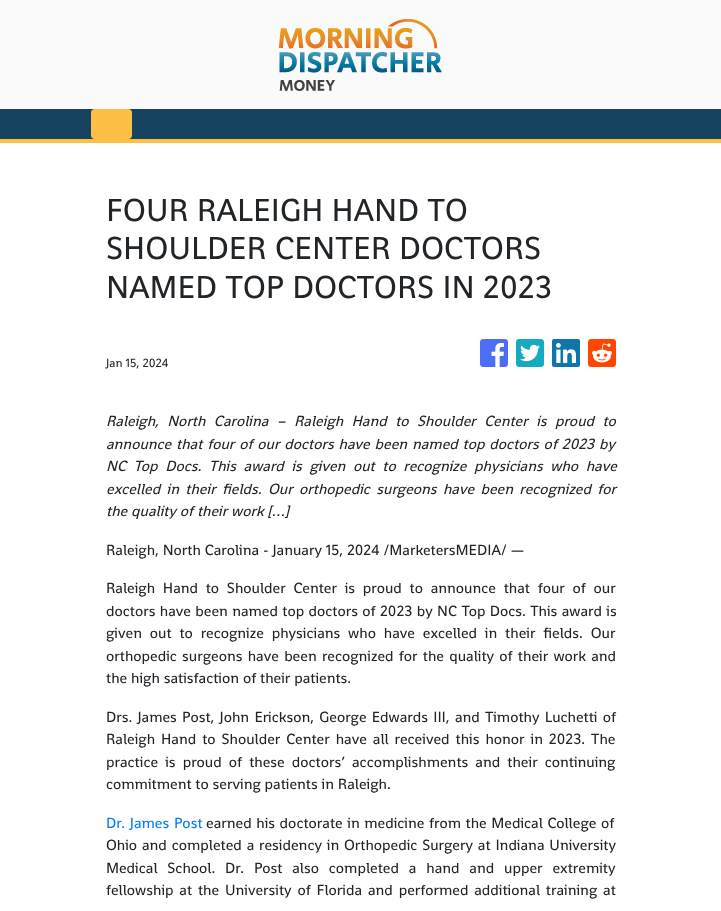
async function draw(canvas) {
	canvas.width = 721;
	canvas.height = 911;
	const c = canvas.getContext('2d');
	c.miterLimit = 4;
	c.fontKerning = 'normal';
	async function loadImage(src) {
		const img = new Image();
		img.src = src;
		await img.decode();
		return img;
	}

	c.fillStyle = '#fff';
	c.fillRect(0, 0, 721, 911);
	c.fillStyle = '#fafafa';
	c.fillRect(0, 0, 721, 109);
	c.drawImage(await loadImage('img1.png'), 279, 19, 163, 72);
	c.fillStyle = '#154360';
	c.fillRect(0, 109, 721, 30);
	c.fillStyle = '#fec044';
	c.fillRect(0, 139, 721, 4);
	c.beginPath();
	c.roundRect(91, 109, 41, 30, 4);
	c.fill();
	c.font = '32px Shanti';
	c.fillStyle = '#212529';
	for (const [text, x, y] of [
		['FOUR RALEIGH HAND TO', 106, 221],
		['SHOULDER CENTER DOCTORS', 106, 259],
		['NAMED TOP DOCTORS IN 2023', 106, 298],
	]) {
		c.fillText(text, x, y);
	}
	c.font = '12px Shanti';
	c.fillText('Jan 15, 2024', 106, 367);
	c.drawImage(await loadImage('img2.png'), 480, 339, 28, 28);
	c.drawImage(await loadImage('img3.png'), 516, 339, 28, 28);
	c.drawImage(await loadImage('img4.png'), 552, 339, 28, 28);
	c.drawImage(await loadImage('img5.png'), 588, 339, 28, 28);
	c.wordSpacing = '4.6px';
	c.font = 'italic 15px Shanti';
	c.fillText('Raleigh, North Carolina – Raleigh Hand to Shoulder Center is proud to', 106, 426);
	c.wordSpacing = '1px';
	c.fillText('announce that four of our doctors have been named top doctors of 2023 by', 106, 449);
	c.wordSpacing = '3.75px';
	c.fillText('NC Top Docs. This award is given out to recognize physicians who have', 106, 471);
	c.wordSpacing = '2.5px';
	c.fillText('excelled in their fields. Our orthopedic surgeons have been recognized for', 106, 494);
	c.wordSpacing = '0px';
	c.fillText('the quality of their work […]', 106, 516);
	c.font = '15px Shanti';
	c.fillText('Raleigh, North Carolina - January 15, 2024 /MarketersMEDIA/ —', 106, 555);
	c.wordSpacing = '3.9px';
	c.fillText('Raleigh Hand to Shoulder Center is proud to announce that four of our', 106, 593);
	c.wordSpacing = '0.5px';
	c.fillText('doctors have been named top doctors of 2023 by NC Top Docs. This award is', 106, 616);
	c.wordSpacing = '4px';
	c.fillText('given out to recognize physicians who have excelled in their fields. Our', 106, 638);
	c.wordSpacing = '1.4px';
	c.fillText('orthopedic surgeons have been recognized for the quality of their work and', 106, 661);
	c.wordSpacing = '0px';
	c.fillText('the high satisfaction of their patients.', 106, 683);
	c.wordSpacing = '1.4px';
	c.fillText('Drs. James Post, John Erickson, George Edwards III, and Timothy Luchetti of', 106, 722);
	c.wordSpacing = '2.1px';
	c.fillText('Raleigh Hand to Shoulder Center have all received this honor in 2023. The', 106, 744);
	c.wordSpacing = '3.25px';
	c.fillText('practice is proud of these doctors’ accomplishments and their continuing', 106, 767);
	c.wordSpacing = '0px';
	c.fillText('commitment to serving patients in Raleigh.', 106, 789);
	c.wordSpacing = '1px';
	c.fillStyle = '#007bff';
	c.fillText('Dr. James Post', 106, 828);
	c.wordSpacing = '0.75px';
	c.fillStyle = '#212529';
	c.fillText('earned his doctorate in medicine from the Medical College of', 206, 828);
	c.wordSpacing = '1px';
	c.fillText('Ohio and completed a residency in Orthopedic Surgery at Indiana University', 106, 850);
	c.wordSpacing = '6px';
	c.fillText('Medical School. Dr. Post also completed a hand and upper extremity', 106, 873);
	c.wordSpacing = '2px';
	c.fillText('fellowship at the University of Florida and performed additional training at', 106, 895);
}

draw(document.querySelector('canvas'));
